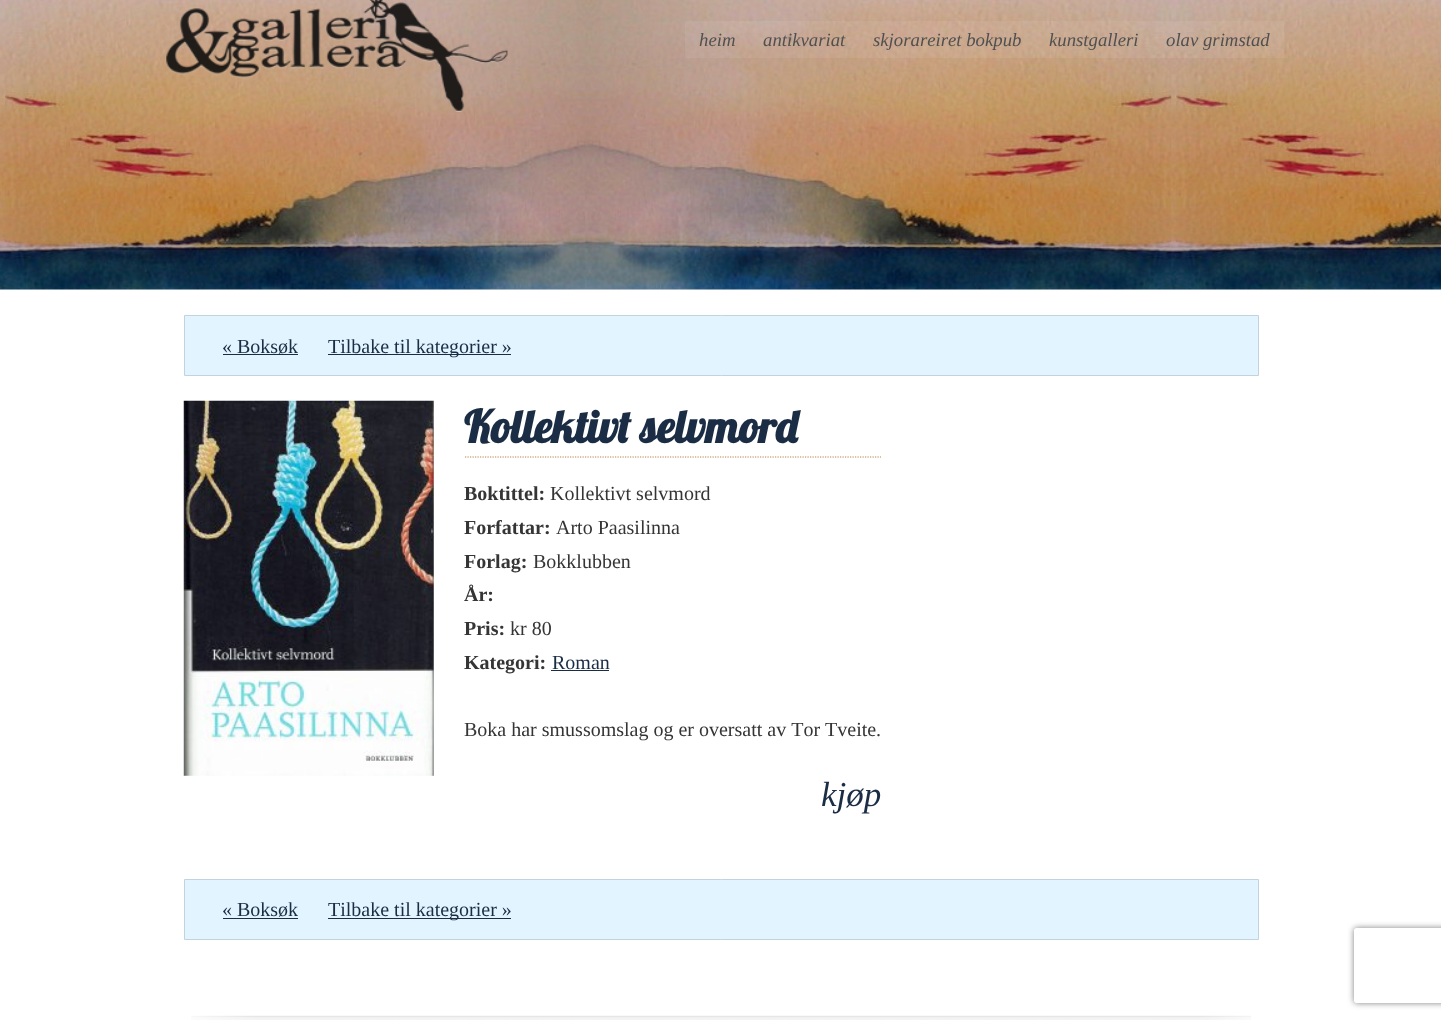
async function draw(canvas) {
	canvas.width = 1441;
	canvas.height = 1020;
	const c = canvas.getContext('2d');
	c.miterLimit = 4;
	c.fontKerning = 'none';
	async function loadImage(src) {
		const img = new Image();
		img.src = src;
		await img.decode();
		return img;
	}

	c.fillStyle = '#fff';
	c.fillRect(0, 0, 1441, 1020);
	c.drawImage(await loadImage('img1.png'), 0, 0, 1441, 290);
	c.drawImage(await loadImage('img2.png'), 166, 0, 342, 112);
	c.fillStyle = '#ffffff12';
	c.fillRect(685, 21, 599, 37);
	c.font = 'italic 18.75px Liberation Serif';
	c.fillStyle = '#505050';
	for (const [text, x, y] of [
		['heim', 699, 46],
		['antikvariat', 763, 46],
		['skjorareiret bokpub', 873, 46],
		['kunstgalleri', 1049, 46],
		['olav grimstad', 1166, 46],
	]) {
		c.fillText(text, x, y);
	}
	c.fillStyle = '#e1f4ff';
	c.beginPath();
	c.rect(184.5, 315.5, 1074, 60);
	c.fill();
	c.strokeStyle = '#c2d3dc';
	c.stroke();
	c.font = '20px Liberation Serif';
	c.fillStyle = '#1a2d44';
	c.fillText('« Boksøk', 222, 353);
	c.fillRect(223, 354, 75, 1);
	c.fillRect(328, 354, 183, 1);
	c.fillText('Tilbake til kategorier »', 328, 353);
	c.drawImage(await loadImage('img3.png'), 183, 400, 251, 376);
	c.beginPath();
	c.moveTo(465, 457);
	c.lineTo(881, 457);
	c.strokeStyle = '#bb8347';
	c.lineWidth = 1.2;
	c.setLineDash([1.25, 1.25]);
	c.stroke();
	c.font = 'bold 45px Lobster';
	c.fillText('Kollektivt selvmord', 464, 443);
	c.font = 'bold 20px Liberation Serif';
	c.fillStyle = '#353535';
	c.fillText('Boktittel:', 464, 500);
	c.font = '20px Liberation Serif';
	c.fillText('Kollektivt selvmord', 550, 500);
	c.font = 'bold 20px Liberation Serif';
	c.fillText('Forfattar:', 464, 534);
	c.font = '20px Liberation Serif';
	c.fillText('Arto Paasilinna', 556, 534);
	c.font = 'bold 20px Liberation Serif';
	c.fillText('Forlag:', 464, 568);
	c.font = '20px Liberation Serif';
	c.fillText('Bokklubben', 533, 568);
	c.font = 'bold 20px Liberation Serif';
	c.fillText('År:', 464, 601);
	c.fillText('Pris:', 464, 635);
	c.font = '20px Liberation Serif';
	c.fillText('kr 80', 510, 635);
	c.font = 'bold 20px Liberation Serif';
	c.fillText('Kategori:', 464, 669);
	c.font = '20px Liberation Serif';
	c.fillStyle = '#1a2d44';
	c.fillText('Roman', 552, 669);
	c.fillRect(551, 670, 58, 1);
	c.fillStyle = '#353535';
	c.fillText('Boka har smussomslag og er oversatt av Tor Tveite.', 464, 736);
	c.font = 'italic 35px Liberation Serif';
	c.fillStyle = '#1a2d44';
	c.fillText('kjøp', 821, 806);
	c.fillStyle = '#e1f4ff';
	c.beginPath();
	c.rect(184.5, 879.5, 1074, 60);
	c.fill();
	c.strokeStyle = '#c2d3dc';
	c.lineWidth = 1;
	c.setLineDash([]);
	c.stroke();
	c.font = '20px Liberation Serif';
	c.fillStyle = '#1a2d44';
	c.fillText('« Boksøk', 222, 916);
	c.fillRect(223, 918, 75, 1);
	c.fillRect(328, 918, 183, 1);
	c.fillText('Tilbake til kategorier »', 328, 916);
	c.drawImage(await loadImage('img4.png'), 191, 1015, 1060, 5);
	c.save();
	c.beginPath();
	c.moveTo(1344, 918);
	c.lineTo(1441, 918);
	c.lineTo(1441, 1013);
	c.lineTo(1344, 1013);
	c.closePath();
	c.moveTo(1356.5, 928);
	c.lineTo(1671.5, 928);
	c.bezierCurveTo(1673, 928, 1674, 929, 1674, 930.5);
	c.lineTo(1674, 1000.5);
	c.bezierCurveTo(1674, 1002, 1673, 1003, 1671.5, 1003);
	c.lineTo(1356.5, 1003);
	c.bezierCurveTo(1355, 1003, 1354, 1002, 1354, 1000.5);
	c.lineTo(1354, 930.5);
	c.bezierCurveTo(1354, 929, 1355, 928, 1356.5, 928);
	c.closePath();
	c.clip('evenodd');
	c.fillStyle = '#808080';
	c.filter = 'blur(3px)';
	c.beginPath();
	c.roundRect(1354, 928, 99, 75, 2.5);
	c.fill();
	c.filter = 'none';
	c.restore();
}

draw(document.querySelector('canvas'));
